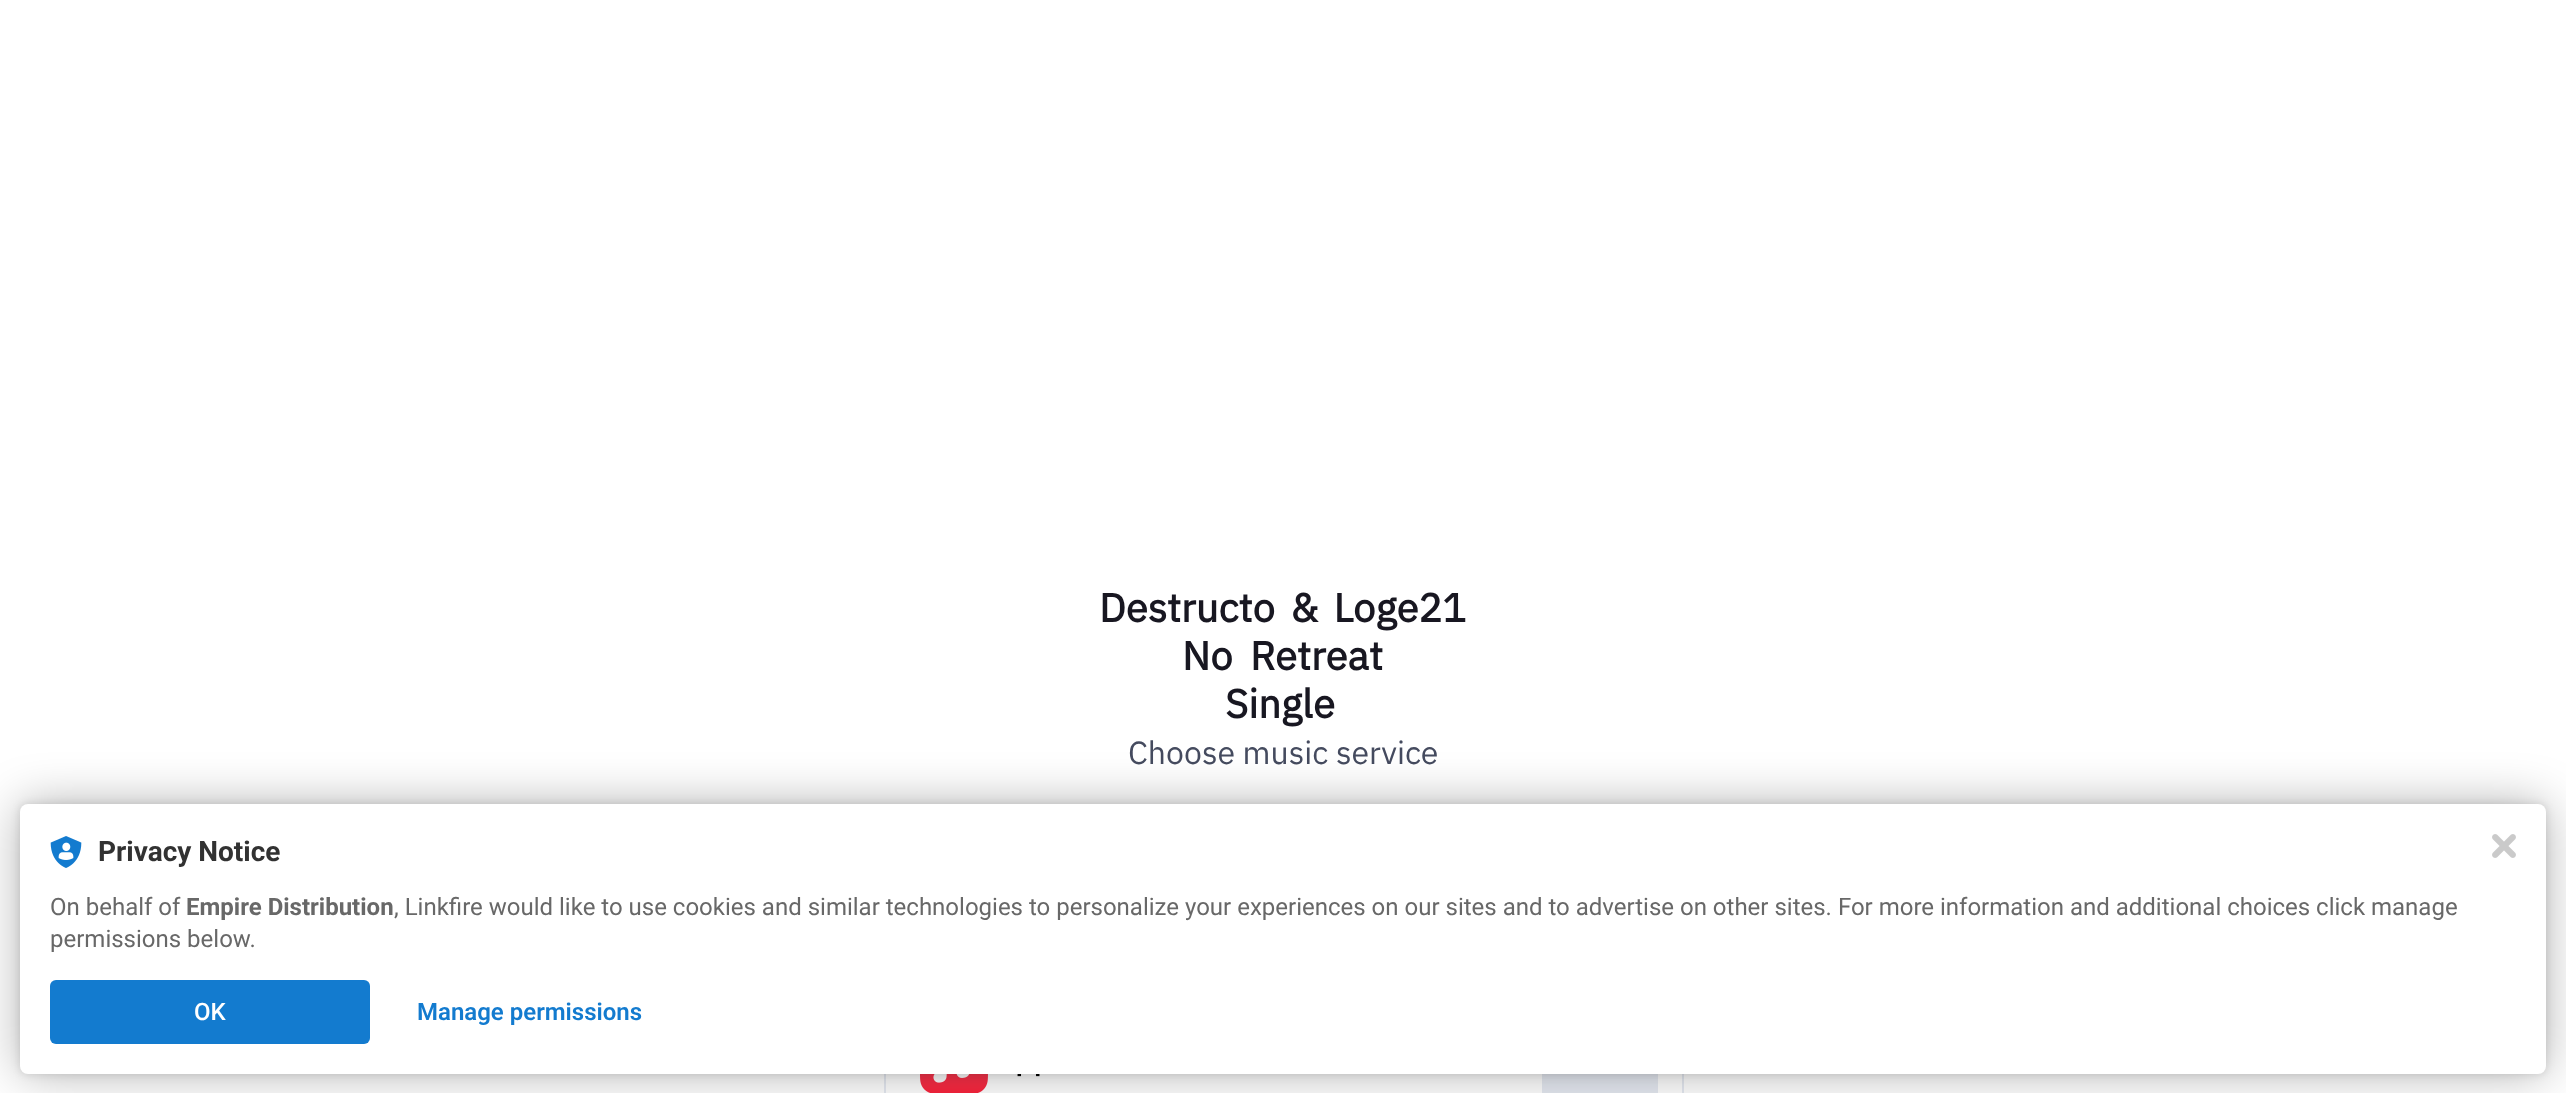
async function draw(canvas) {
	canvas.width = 2566;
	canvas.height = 1093;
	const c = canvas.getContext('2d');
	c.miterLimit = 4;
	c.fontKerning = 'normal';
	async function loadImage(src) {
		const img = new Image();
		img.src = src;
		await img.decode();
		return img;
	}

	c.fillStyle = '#fff';
	c.fillRect(0, 0, 2566, 1093);
	c.wordSpacing = '6px';
	c.font = 'bold 40px IBM Plex Sans';
	c.fillStyle = '#181721';
	c.fillText('Destructo & Loge21', 1099, 622);
	c.wordSpacing = '8px';
	c.fillText('No Retreat', 1182, 670);
	c.wordSpacing = '0px';
	c.fillText('Single', 1225, 718);
	c.font = '32px IBM Plex Sans';
	c.fillStyle = '#454b5f';
	c.fillText('Choose music service', 1128, 764);
	c.strokeStyle = '#e6eaf2';
	c.lineWidth = 2;
	c.strokeRect(885, 841, 798, 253);
	c.drawImage(await loadImage('img1.png'), 920, 1074, 120, 19);
	c.fillStyle = '#e6eaf2';
	c.fillRect(1542, 1074, 116, 19);
	c.fillStyle = '#0000001f';
	c.filter = 'blur(4px)';
	c.beginPath();
	c.roundRect(20, 804, 2526, 270, 8);
	c.fill();
	c.filter = 'none';
	c.fillStyle = '#0000004d';
	c.filter = 'blur(24px)';
	c.beginPath();
	c.roundRect(20, 804, 2526, 270, 8);
	c.fill();
	c.filter = 'none';
	c.fillStyle = '#fff';
	c.beginPath();
	c.roundRect(20, 804, 2526, 270, 8);
	c.fill();
	c.drawImage(await loadImage('img2.png'), 50, 836, 32, 32);
	c.font = 'bold 28px Roboto';
	c.fillStyle = '#323232';
	c.fillText('Privacy Notice', 98, 861);
	c.font = '24px Roboto';
	c.fillStyle = '#686868';
	c.fillText('On behalf of', 50, 915);
	c.font = 'bold 24px Roboto';
	c.fillText('Empire Distribution', 186, 915);
	c.font = '24px Roboto';
	c.fillText(', Linkfire would like to use cookies and similar technologies to personalize your experiences on our sites and to advertise on other sites. For more information and additional choices click manage', 394, 915);
	c.fillText('permissions below.', 50, 947);
	c.fillStyle = '#137bcf';
	c.beginPath();
	c.roundRect(50, 980, 320, 64, 6);
	c.fill();
	c.font = '500 24px Roboto';
	c.fillStyle = '#fff';
	c.fillText('OK', 194, 1020);
	c.font = '600 24px Roboto';
	c.fillStyle = '#137bcf';
	c.fillText('Manage permissions', 417, 1020);
	c.drawImage(await loadImage('img3.png'), 2492, 834, 24, 24);
}

draw(document.querySelector('canvas'));
